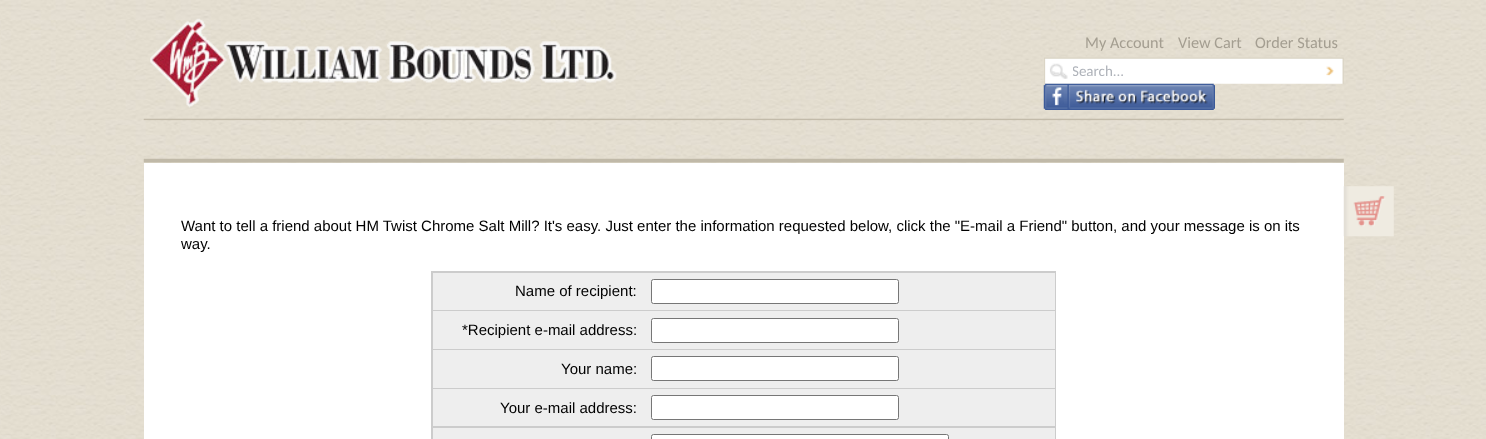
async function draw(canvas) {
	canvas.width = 1486;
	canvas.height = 439;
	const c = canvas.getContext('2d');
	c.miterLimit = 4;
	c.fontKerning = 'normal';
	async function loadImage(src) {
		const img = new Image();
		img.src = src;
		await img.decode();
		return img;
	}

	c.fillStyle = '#fff';
	c.fillRect(0, 0, 1486, 439);
	c.drawImage(await loadImage('img1.png'), 0, 0, 1486, 439);
	c.drawImage(await loadImage('img2.png'), 150, 18, 467, 90);
	c.font = '16.25px Carlito';
	c.fillStyle = '#a49e91';
	for (const [text, x, y] of [
		['My Account', 1085, 48],
		['View Cart', 1178, 48],
		['Order Status', 1255, 48],
	]) {
		c.fillText(text, x, y);
	}
	c.drawImage(await loadImage('img3.png'), 1044, 57, 300, 27);
	c.save();
	c.beginPath();
	c.rect(1073, 63, 237, 17);
	c.clip();
	c.font = '15px Carlito';
	c.fillStyle = '#afb3ba';
	c.fillText('Search...', 1072, 76);
	c.restore();
	c.drawImage(await loadImage('img4.png'), 1043, 83, 172, 27);
	c.fillStyle = '#fff';
	c.fillRect(144, 163, 1200, 276);
	c.drawImage(await loadImage('img5.png'), 1343, 186, 51, 51);
	c.drawImage(await loadImage('img6.png'), 143, 118, 1201, 45);
	c.font = '15px Liberation Sans';
	c.fillStyle = '#000';
	c.fillText('Want to tell a friend about HM Twist Chrome Salt Mill? It\'s easy. Just enter the information requested below, click the "E-mail a Friend" button, and your message is on its', 181, 231);
	c.fillText('way.', 181, 249);
	c.fillStyle = '#ccc';
	c.fillRect(431, 271, 625, 168);
	c.fillStyle = '#eee';
	c.fillRect(433, 273, 622, 37);
	c.fillStyle = '#000';
	c.fillText('Name of recipient:', 515, 296);
	c.fillStyle = '#fff';
	c.beginPath();
	c.roundRect(651.5, 279.5, 247, 24, 2);
	c.fill();
	c.strokeStyle = '#767676';
	c.stroke();
	c.fillStyle = '#eee';
	c.fillRect(433, 311, 622, 38);
	c.fillStyle = '#000';
	c.fillText('*Recipient e-mail address:', 462, 335);
	c.fillStyle = '#fff';
	c.beginPath();
	c.roundRect(651.5, 318.5, 247, 24, 2);
	c.fill();
	c.stroke();
	c.fillStyle = '#eee';
	c.fillRect(433, 350, 622, 38);
	c.fillStyle = '#000';
	c.fillText('Your name:', 561, 374);
	c.fillStyle = '#fff';
	c.beginPath();
	c.roundRect(651.5, 356.5, 247, 24, 2);
	c.fill();
	c.stroke();
	c.fillStyle = '#eee';
	c.fillRect(433, 389, 622, 37);
	c.fillStyle = '#000';
	c.fillText('Your e-mail address:', 500, 413);
	c.fillStyle = '#fff';
	c.beginPath();
	c.roundRect(651.5, 395.5, 247, 24, 2);
	c.fill();
	c.stroke();
	c.fillStyle = '#eee';
	c.fillRect(433, 428, 622, 11);
	c.fillStyle = '#fff';
	c.beginPath();
	c.roundRect(651.5, 434.5, 297, 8, 2);
	c.fill();
	c.stroke();
}

draw(document.querySelector('canvas'));
